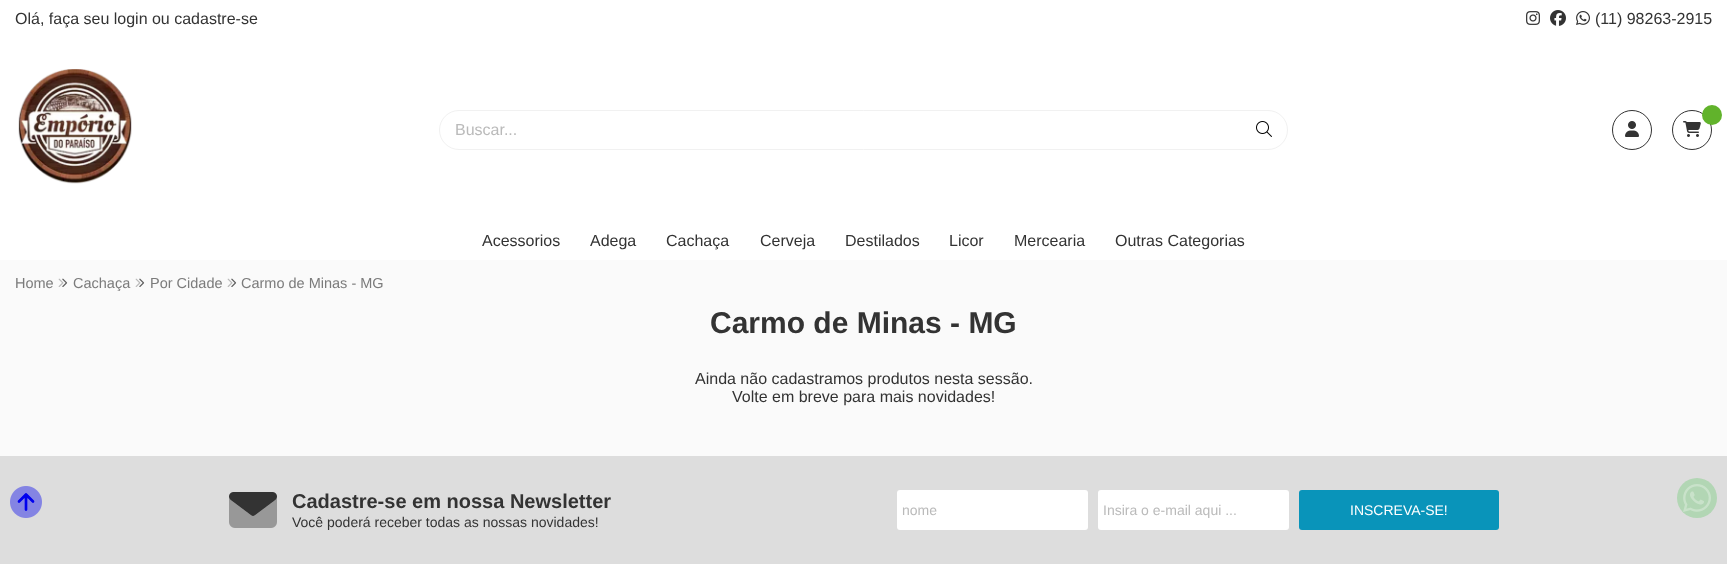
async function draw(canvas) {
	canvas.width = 1727;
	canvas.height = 568;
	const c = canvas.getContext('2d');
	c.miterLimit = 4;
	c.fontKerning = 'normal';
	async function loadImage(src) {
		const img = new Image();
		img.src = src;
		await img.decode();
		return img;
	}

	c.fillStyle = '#fafafa';
	c.fillRect(0, 0, 1727, 568);
	c.fillStyle = '#fff';
	c.fillRect(0, 0, 1727, 260);
	c.font = '16px Liberation Sans';
	c.fillStyle = '#333';
	c.fillText('Olá, faça seu login ou cadastre-se', 15, 24);
	c.drawImage(await loadImage('img1.png'), 1526, 11, 14, 14);
	c.drawImage(await loadImage('img2.png'), 1550, 10, 16, 16);
	c.drawImage(await loadImage('img3.png'), 1576, 11, 14, 14);
	c.fillText('(11) 98263-2915', 1595, 24);
	c.drawImage(await loadImage('img4.png'), 18, 69, 114, 115);
	c.beginPath();
	c.roundRect(439.5, 110.5, 848, 39, 19.5);
	c.strokeStyle = '#f1f1f1';
	c.stroke();
	c.fillStyle = '#bababa';
	c.fillText('Buscar...', 455, 135);
	c.drawImage(await loadImage('img5.png'), 1256, 121, 16, 16);
	c.beginPath();
	c.arc(1632, 130, 19.5, 0, 2 * Math.PI);
	c.strokeStyle = '#333';
	c.stroke();
	c.drawImage(await loadImage('img6.png'), 1625, 121, 14, 16);
	c.beginPath();
	c.arc(1692, 130, 19.5, 0, 2 * Math.PI);
	c.stroke();
	c.fillStyle = '#61b32b';
	c.beginPath();
	c.arc(1712, 115, 10, 0, 2 * Math.PI);
	c.fill();
	c.drawImage(await loadImage('img7.png'), 1683, 121, 18, 16);
	c.fillStyle = '#333';
	for (const [text, x, y] of [
		['Acessorios', 482, 246],
		['Adega', 590, 246],
		['Cachaça', 666, 246],
		['Cerveja', 760, 246],
		['Destilados', 845, 246],
		['Licor', 949, 246],
		['Mercearia', 1014, 246],
		['Outras Categorias', 1115, 246],
	]) {
		c.fillText(text, x, y);
	}
	c.font = '14.5px Liberation Sans';
	c.fillStyle = '#7b7b7b';
	c.fillText('Home', 15, 288);
	c.drawImage(await loadImage('img8.png'), 58, 278, 10, 9);
	c.fillText('Cachaça', 73, 288);
	c.drawImage(await loadImage('img8.png'), 135, 278, 10, 9);
	c.fillText('Por Cidade', 150, 288);
	c.drawImage(await loadImage('img8.png'), 227, 278, 10, 9);
	c.fillText('Carmo de Minas - MG', 241, 288);
	c.font = 'bold 30px Liberation Sans';
	c.fillStyle = '#333';
	c.fillText('Carmo de Minas - MG', 710, 333);
	c.font = '16px Liberation Sans';
	c.fillText('Ainda não cadastramos produtos nesta sessão.', 695, 384);
	c.fillText('Volte em breve para mais novidades!', 732, 402);
	c.fillStyle = '#ddd';
	c.fillRect(0, 456, 1727, 108);
	c.drawImage(await loadImage('img9.png'), 10, 486, 32, 32);
	c.drawImage(await loadImage('img10.png'), 229, 492, 48, 36);
	c.font = 'bold 20px Liberation Sans';
	c.fillStyle = '#333';
	c.fillText('Cadastre-se em nossa Newsletter', 292, 508);
	c.font = '14px Liberation Sans';
	c.fillText('Você poderá receber todas as nossas novidades!', 292, 527);
	c.fillStyle = '#fff';
	c.beginPath();
	c.roundRect(897, 490, 191, 40, 3);
	c.fill();
	c.fillStyle = '#bababa';
	c.fillText('nome', 902, 515);
	c.fillStyle = '#fff';
	c.beginPath();
	c.roundRect(1098, 490, 191, 40, 3);
	c.fill();
	c.fillStyle = '#bababa';
	c.fillText('Insira o e-mail aqui ...', 1103, 515);
	c.fillStyle = '#0994ba';
	c.beginPath();
	c.roundRect(1299, 490, 200, 40, 3);
	c.fill();
	c.fillStyle = '#fff';
	c.fillText('INSCREVA-SE!', 1350, 515);
	c.fillStyle = '#b2d6b4';
	c.beginPath();
	c.arc(1697, 498, 20, 0, 2 * Math.PI);
	c.fill();
	c.drawImage(await loadImage('img11.png'), 1683, 484, 28, 28);
	c.fillStyle = '#fff';
	c.fillRect(0, 564, 1727, 4);
}

draw(document.querySelector('canvas'));
